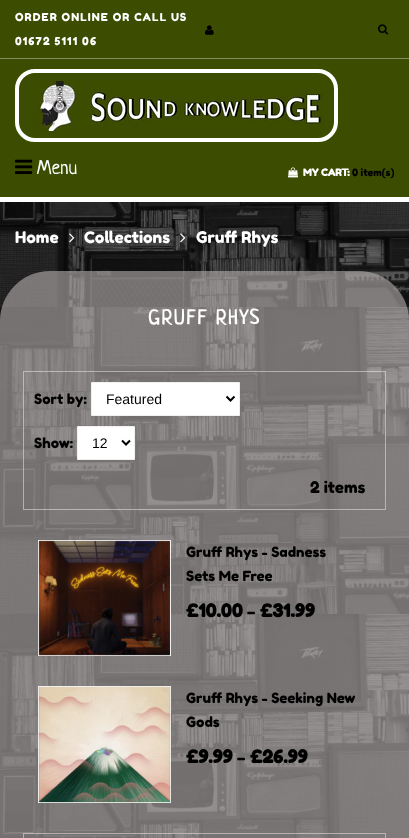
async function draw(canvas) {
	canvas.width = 409;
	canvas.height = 838;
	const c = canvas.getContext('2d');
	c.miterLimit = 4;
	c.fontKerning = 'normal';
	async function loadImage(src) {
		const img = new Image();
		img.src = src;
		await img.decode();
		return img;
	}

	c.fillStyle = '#fff';
	c.fillRect(0, 0, 409, 838);
	c.drawImage(await loadImage('img1.png'), 0, 202, 409, 636);
	c.fillStyle = '#3c4c00';
	c.fillRect(0, 0, 409, 197);
	c.fillStyle = '#848e60';
	c.fillRect(0, 58, 409, 1);
	c.letterSpacing = '1.1px';
	c.font = '11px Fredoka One';
	c.fillStyle = '#fff';
	c.fillText('ORDER ONLINE OR CALL US', 15, 21);
	c.fillText('01672 5111 06', 15, 45);
	c.drawImage(await loadImage('img2.png'), 205, 25, 9, 10);
	c.drawImage(await loadImage('img3.png'), 378, 24, 11, 11);
	c.beginPath();
	c.roundRect(17, 71, 319, 69, 18);
	c.strokeStyle = '#fff';
	c.lineWidth = 4;
	c.stroke();
	c.drawImage(await loadImage('img4.png'), 37, 81, 286, 50);
	c.drawImage(await loadImage('img5.png'), 15, 159, 18, 15);
	c.letterSpacing = '0px';
	c.font = '20px Neucha';
	c.fillText('Menu', 37, 174);
	c.drawImage(await loadImage('img6.png'), 288, 167, 10, 11);
	c.font = 'bold 10px Fredoka One';
	c.fillText('MY CART:', 303, 176);
	c.font = '10px Fredoka One';
	c.fillStyle = '#000';
	c.fillText('0 item(s)', 352, 176);
	c.font = '16px Fredoka One';
	c.fillStyle = '#fff';
	c.fillText('Home', 15, 243);
	c.drawImage(await loadImage('img7.png'), 69, 233, 6, 10);
	c.fillText('Collections', 84, 243);
	c.drawImage(await loadImage('img8.png'), 180, 233, 6, 10);
	c.fillText('Gruff Rhys', 196, 243);
	c.fillStyle = '#b5acac9e';
	c.beginPath();
	c.roundRect(0, 271, 409, 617, 50);
	c.fill();
	c.letterSpacing = '2px';
	c.font = 'bold 20px Neucha';
	c.fillStyle = '#fff';
	c.fillText('GRUFF RHYS', 148, 324);
	c.strokeStyle = '#f0f0f080';
	c.lineWidth = 1;
	c.strokeRect(23.5, 371.5, 362, 138);
	c.letterSpacing = '0px';
	c.font = '14px Fredoka One';
	c.fillStyle = '#000';
	c.fillText('Sort by:', 34, 404);
	c.fillStyle = '#fff';
	c.beginPath();
	c.rect(91.5, 382.5, 148, 33);
	c.fill();
	c.strokeStyle = '#f0f0f0';
	c.stroke();
	c.beginPath();
	c.moveTo(226.5, 396.5);
	c.lineTo(230.5, 400.5);
	c.lineTo(234.5, 396.5);
	c.strokeStyle = '#000';
	c.lineWidth = 2;
	c.stroke();
	c.font = '14px Liberation Sans';
	c.fillStyle = '#000';
	c.fillText('Featured', 106, 404);
	c.font = '14px Fredoka One';
	c.fillText('Show:', 34, 448);
	c.fillStyle = '#fff';
	c.beginPath();
	c.rect(77.5, 426.5, 57, 33);
	c.fill();
	c.strokeStyle = '#f0f0f0';
	c.lineWidth = 1;
	c.stroke();
	c.beginPath();
	c.moveTo(122, 440.5);
	c.lineTo(126, 444.5);
	c.lineTo(130, 440.5);
	c.strokeStyle = '#000';
	c.lineWidth = 2;
	c.stroke();
	c.font = '14px Liberation Sans';
	c.fillStyle = '#000';
	c.fillText('12', 92, 448);
	c.font = '16px Fredoka One';
	c.fillText('2 items', 310, 493);
	c.strokeStyle = '#f0f0f0';
	c.lineWidth = 1;
	c.strokeRect(38.5, 540.5, 132, 115);
	c.drawImage(await loadImage('img9.png'), 38, 540, 132, 116);
	c.font = '14px Fredoka One';
	c.fillText('Gruff Rhys - Sadness', 186, 557);
	c.fillText('Sets Me Free', 186, 581);
	c.font = 'bold 18px Fredoka One';
	c.fillText('£10.00', 186, 617);
	c.font = 'bold 14px Fredoka One';
	c.fillText('–', 247, 617);
	c.font = 'bold 18px Fredoka One';
	c.fillText('£31.99', 260, 617);
	c.strokeRect(38.5, 686.5, 132, 116);
	c.drawImage(await loadImage('img10.png'), 38, 687, 133, 116);
	c.font = '14px Fredoka One';
	c.fillText('Gruff Rhys - Seeking New', 186, 703);
	c.fillText('Gods', 186, 727);
	c.font = 'bold 18px Fredoka One';
	c.fillText('£9.99', 186, 763);
	c.font = 'bold 14px Fredoka One';
	c.fillText('–', 237, 763);
	c.font = 'bold 18px Fredoka One';
	c.fillText('£26.99', 250, 763);
	c.strokeStyle = '#f0f0f080';
	c.strokeRect(23.5, 833.5, 362, 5);
}

draw(document.querySelector('canvas'));
